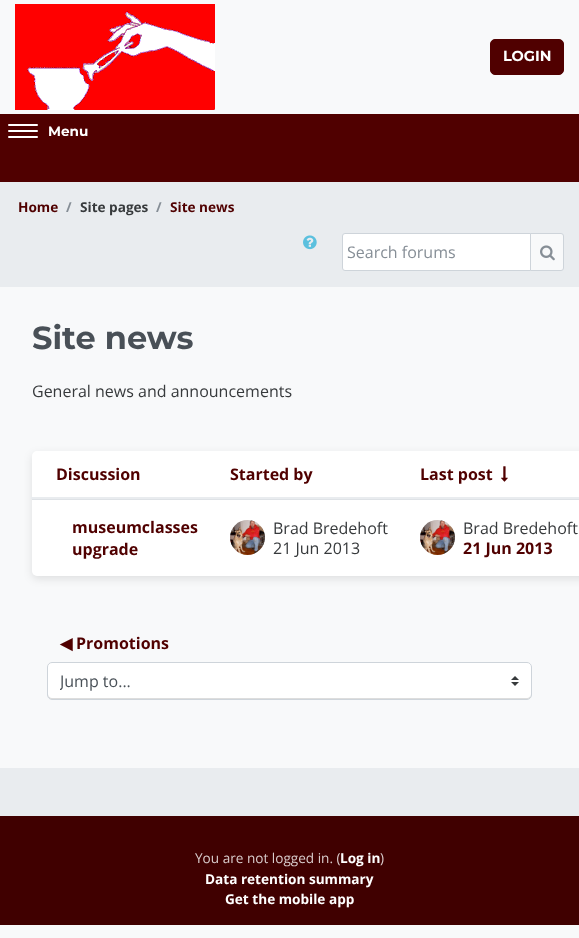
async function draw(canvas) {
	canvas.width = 579;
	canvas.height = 938;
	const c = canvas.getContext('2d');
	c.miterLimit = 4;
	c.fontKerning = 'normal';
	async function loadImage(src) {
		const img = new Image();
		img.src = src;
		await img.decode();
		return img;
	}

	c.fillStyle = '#f8f9fa';
	c.fillRect(0, 0, 579, 938);
	c.drawImage(await loadImage('img1.png'), 15, 4, 200, 106);
	c.fillStyle = '#500000';
	c.beginPath();
	c.roundRect(490.5, 39.5, 73, 35, 4.5);
	c.fill();
	c.strokeStyle = '#500000';
	c.stroke();
	c.font = 'bold 14.5px Montserrat';
	c.fillStyle = '#fff';
	c.fillText('LOGIN', 503, 61);
	c.fillStyle = '#500000';
	c.fillRect(0, 114, 579, 68);
	c.fillStyle = '#fff';
	c.beginPath();
	c.roundRect(8, 124, 30, 2, 1);
	c.fill();
	c.beginPath();
	c.roundRect(8, 130, 30, 2, 1);
	c.fill();
	c.beginPath();
	c.roundRect(8, 136, 30, 2, 1);
	c.fill();
	c.font = 'bold 13.6px Montserrat';
	c.fillText('Menu', 48, 136);
	c.fillStyle = '#e9ecef';
	c.fillRect(0, 182, 579, 105);
	c.font = 'bold 13.6px Open Sans';
	c.fillStyle = '#500000';
	c.fillText('Home', 18, 212);
	c.fillStyle = '#868e96';
	c.fillText('/', 66, 212);
	c.fillStyle = '#373a3c';
	c.fillText('Site pages', 80, 212);
	c.fillStyle = '#868e96';
	c.fillText('/', 156, 212);
	c.fillStyle = '#500000';
	c.fillText('Site news', 170, 212);
	c.drawImage(await loadImage('img2.png'), 303, 235, 14, 15);
	c.fillStyle = '#fff';
	c.beginPath();
	c.roundRect(342.5, 233.5, 188, 37, [2.5, 0, 0, 2.5]);
	c.fill();
	c.strokeStyle = '#ced4da';
	c.stroke();
	c.font = '16px Open Sans';
	c.fillStyle = '#868e96';
	c.fillText('Search forums', 347, 258);
	c.fillStyle = '#f8f9fa';
	c.beginPath();
	c.roundRect(530.5, 233.5, 33, 37, [0, 2.5, 2.5, 0]);
	c.fill();
	c.stroke();
	c.drawImage(await loadImage('img3.png'), 540, 245, 15, 16);
	c.font = 'bold 32px Montserrat';
	c.fillStyle = '#495057';
	c.fillText('Site news', 32, 349);
	c.font = '16px Open Sans';
	c.fillStyle = '#373a3c';
	c.fillText('General news and announcements', 32, 397);
	c.fillStyle = '#0000001a';
	c.filter = 'blur(4px)';
	c.beginPath();
	c.roundRect(32, 454, 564, 125, 5);
	c.fill();
	c.filter = 'none';
	c.fillStyle = '#fff';
	c.beginPath();
	c.roundRect(32, 451, 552, 125, 5);
	c.fill();
	c.font = 'bold 16px Open Sans';
	c.fillStyle = '#500000';
	c.fillText('Discussion', 56, 480);
	c.fillText('Started by', 230, 480);
	c.fillStyle = '#e9ecef';
	c.fillRect(31, 497, 548, 2);
	c.fillStyle = '#500000';
	c.fillText('Last post', 420, 480);
	c.drawImage(await loadImage('img4.png'), 501, 466, 7, 16);
	c.fillText('museumclasses', 72, 533);
	c.fillText('upgrade', 72, 555);
	c.drawImage(await loadImage('img5.png'), 230, 520, 35, 35);
	c.font = '16px Open Sans';
	c.fillStyle = '#373a3c';
	c.fillText('Brad Bredehoft', 273, 534);
	c.fillText('21 Jun 2013', 273, 554);
	c.fillStyle = '#dee2e6';
	c.fillRect(32, 499, 547, 1);
	c.drawImage(await loadImage('img6.png'), 420, 520, 35, 35);
	c.fillStyle = '#373a3c';
	c.fillText('Brad Bredehoft', 463, 534);
	c.font = 'bold 16px Open Sans';
	c.fillStyle = '#500000';
	c.fillText('21 Jun 2013', 463, 554);
	c.font = 'bold 16px DejaVu Sans';
	c.fillText('◀︎', 60, 649);
	c.font = 'bold 16px Open Sans';
	c.fillText('Promotions', 76, 649);
	c.fillStyle = '#fff';
	c.beginPath();
	c.roundRect(47, 662, 485, 38, 5);
	c.fill();
	c.drawImage(await loadImage('img7.png'), 511, 676, 8, 10);
	c.fillStyle = '#ddd';
	c.beginPath();
	c.moveTo(48, 694);
	c.bezierCurveTo(48, 697, 49, 699, 52, 699);
	c.lineTo(527, 699);
	c.bezierCurveTo(530, 699, 531, 697, 531, 694);
	c.bezierCurveTo(531, 696, 529, 698, 527, 698);
	c.lineTo(52, 698);
	c.bezierCurveTo(50, 698, 48, 696, 48, 694);
	c.closePath();
	c.fill();
	c.beginPath();
	c.roundRect(47.5, 662.5, 484, 37, 4.5);
	c.stroke();
	c.save();
	c.beginPath();
	c.rect(60, 669, 443, 24);
	c.clip();
	c.font = '16px Open Sans';
	c.fillStyle = '#495057';
	c.fillText('Jump to...', 60, 687);
	c.restore();
	c.fillStyle = '#e9ecef';
	c.fillRect(0, 768, 579, 48);
	c.fillStyle = '#400000';
	c.fillRect(0, 816, 579, 109);
	c.font = '13.6px Open Sans';
	c.fillStyle = '#d9cccc';
	c.fillText('You are not logged in. (', 195, 863);
	c.font = 'bold 13.6px Open Sans';
	c.fillStyle = '#fff';
	c.fillText('Log in', 340, 863);
	c.font = '13.6px Open Sans';
	c.fillStyle = '#d9cccc';
	c.fillText(')', 380, 863);
	c.font = 'bold 13.6px Open Sans';
	c.fillStyle = '#fff';
	c.fillText('Data retention summary', 205, 884);
	c.fillText('Get the mobile app', 225, 904);
}

draw(document.querySelector('canvas'));
